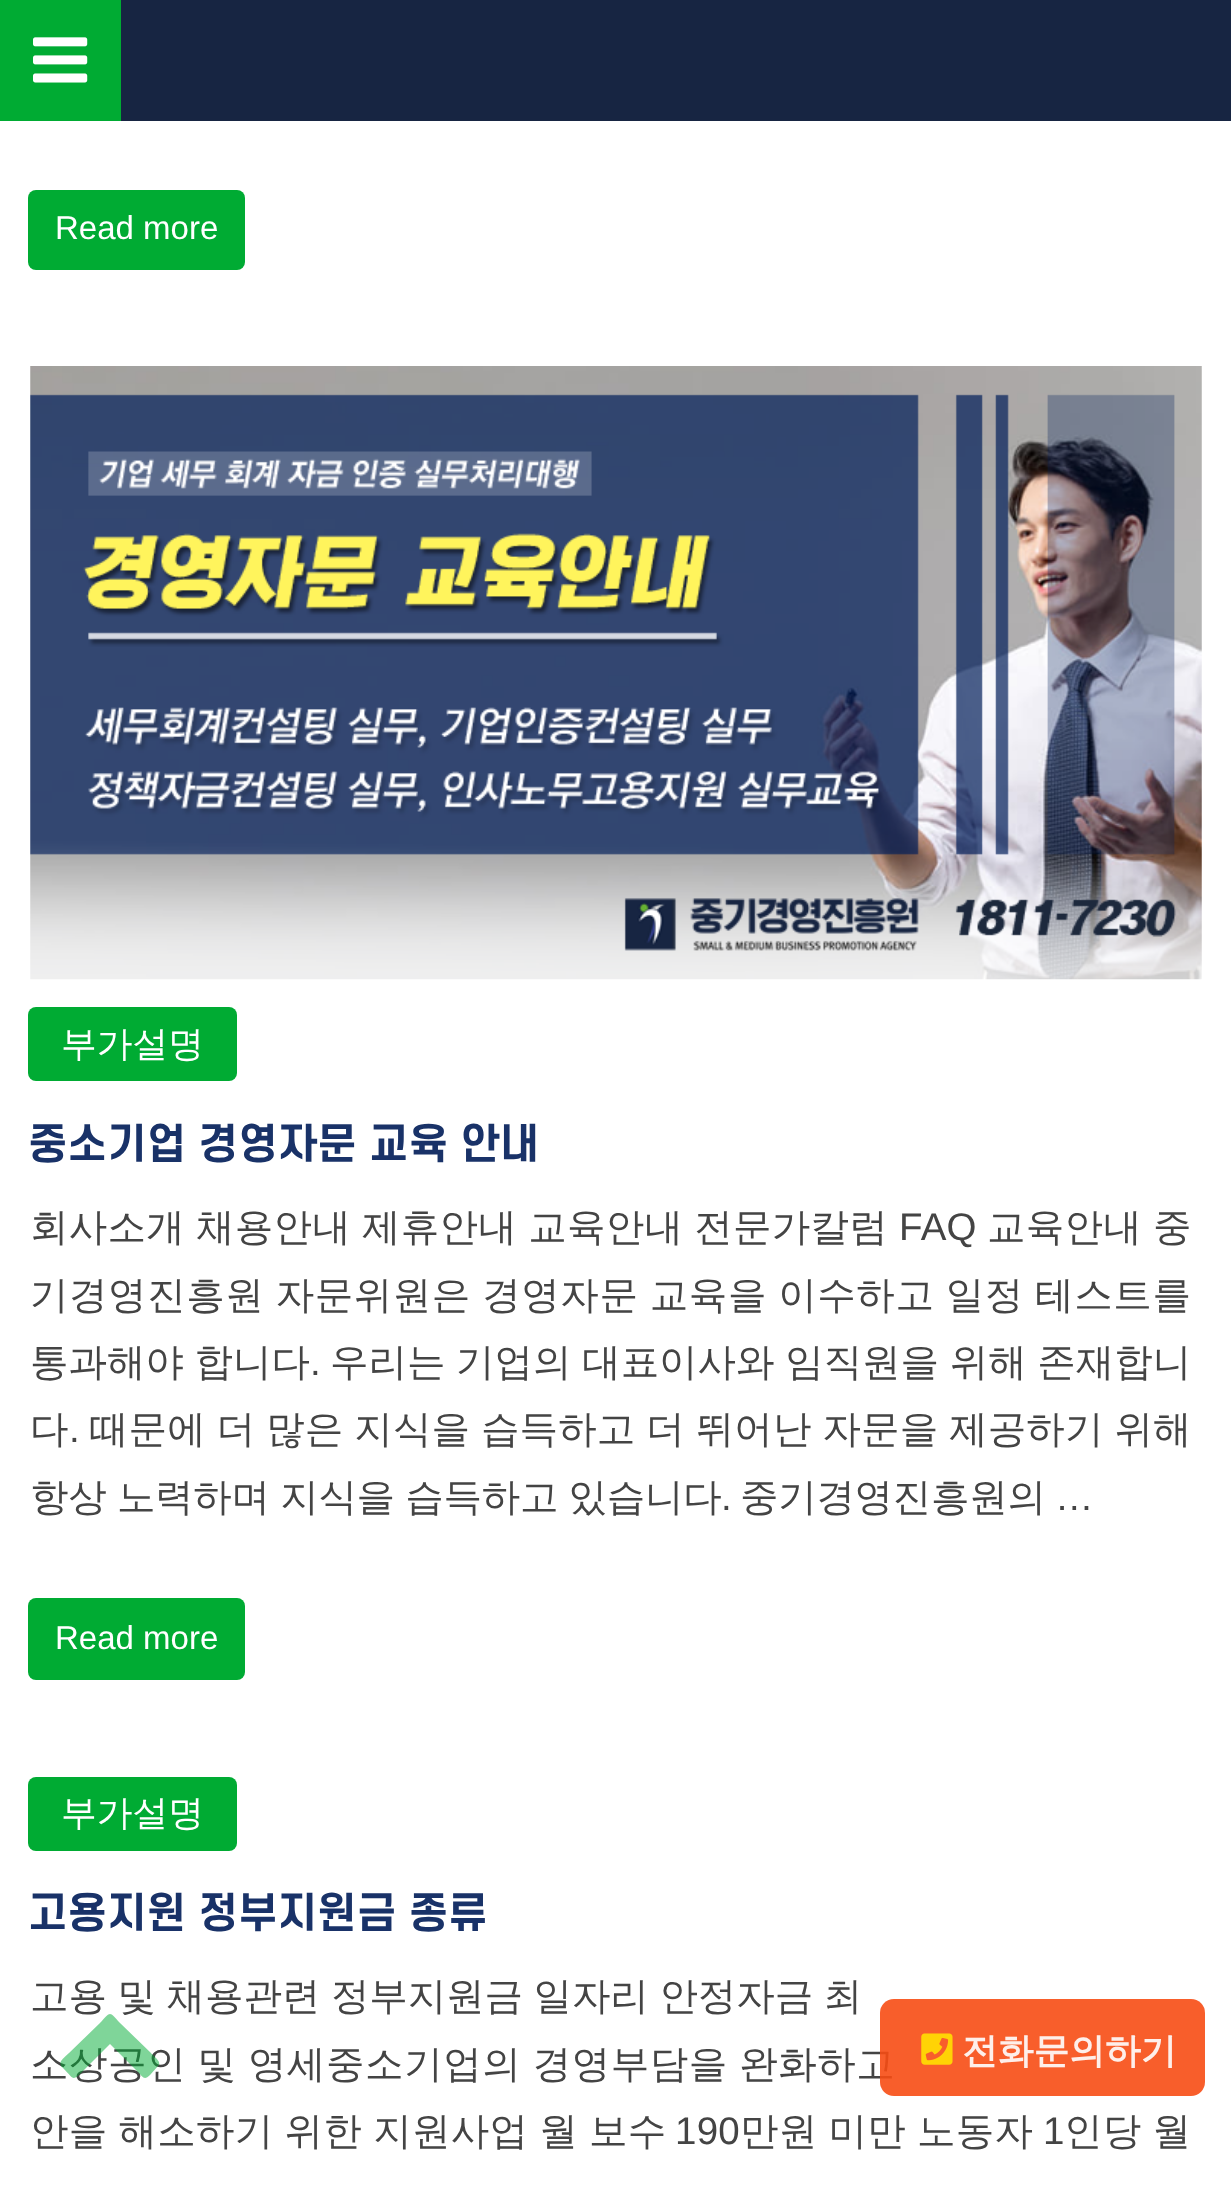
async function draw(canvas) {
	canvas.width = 1231;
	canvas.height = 2203;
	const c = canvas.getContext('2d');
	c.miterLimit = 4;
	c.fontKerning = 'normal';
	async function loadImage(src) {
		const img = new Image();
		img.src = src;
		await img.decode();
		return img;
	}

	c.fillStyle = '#fff';
	c.fillRect(0, 0, 1231, 2203);
	c.fillStyle = '#172542';
	c.fillRect(121, 0, 1110, 121);
	c.fillStyle = '#00ab33';
	c.fillRect(0, 0, 121, 121);
	c.drawImage(await loadImage('img1.png'), 33, 37, 55, 46);
	c.beginPath();
	c.roundRect(28, 190, 217, 80, 8);
	c.fill();
	c.font = '33px Liberation Sans';
	c.fillStyle = '#fff';
	c.fillText('Read more', 55, 239);
	c.drawImage(await loadImage('img2.png'), 30, 366, 1172, 614);
	c.fillStyle = '#00ab33';
	c.beginPath();
	c.roundRect(28, 1007, 209, 74, 8);
	c.fill();
	c.font = '500 35.75px WenQuanYi Zen Hei';
	c.fillStyle = '#fff';
	c.fillText('부가설명', 61, 1056);
	c.font = 'bold 41.25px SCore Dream';
	c.fillStyle = '#193268';
	c.fillText('중소기업 경영자문 교육 안내', 28, 1159);
	c.letterSpacing = '0.25px';
	c.wordSpacing = '-0.75px';
	c.font = '500 38.5px WenQuanYi Zen Hei';
	c.fillStyle = '#444';
	c.fillText('회사소개 채용안내 제휴안내 교육안내 전문가칼럼', 30, 1240);
	c.wordSpacing = '0px';
	c.font = '38.5px Liberation Sans';
	c.fillText('FAQ', 899, 1240);
	c.wordSpacing = '-0.75px';
	c.font = '500 38.5px WenQuanYi Zen Hei';
	c.fillText('교육안내 중', 987, 1240);
	c.letterSpacing = '0.55px';
	c.fillText('기경영진흥원 자문위원은 경영자문 교육을 이수하고 일정 테스트를', 30, 1308);
	c.letterSpacing = '-0.05px';
	c.fillText('통과해야 합니다', 30, 1375);
	c.wordSpacing = '0px';
	c.font = '38.5px Liberation Sans';
	c.fillText('.', 310, 1375);
	c.wordSpacing = '-0.75px';
	c.font = '500 38.5px WenQuanYi Zen Hei';
	c.fillText('우리는 기업의 대표이사와 임직원을 위해 존재합니', 330, 1375);
	c.letterSpacing = '0.1px';
	c.wordSpacing = '0px';
	c.fillText('다', 30, 1442);
	c.font = '38.5px Liberation Sans';
	c.fillText('.', 69, 1442);
	c.wordSpacing = '-0.75px';
	c.font = '500 38.5px WenQuanYi Zen Hei';
	c.fillText('때문에 더 많은 지식을 습득하고 더 뛰어난 자문을 제공하기 위해', 90, 1442);
	c.letterSpacing = '-0.3px';
	c.fillText('항상 노력하며 지식을 습득하고 있습니다', 30, 1510);
	c.wordSpacing = '0px';
	c.font = '38.5px Liberation Sans';
	c.fillText('.', 721, 1510);
	c.font = '500 38.5px WenQuanYi Zen Hei';
	c.fillText('중기경영진흥원의', 740, 1510);
	c.font = '38.5px Liberation Sans';
	c.fillText('…', 1055, 1510);
	c.fillStyle = '#00ab33';
	c.beginPath();
	c.roundRect(28, 1598, 217, 82, 8);
	c.fill();
	c.letterSpacing = '0px';
	c.font = '33px Liberation Sans';
	c.fillStyle = '#fff';
	c.fillText('Read more', 55, 1649);
	c.fillStyle = '#00ab33';
	c.beginPath();
	c.roundRect(28, 1777, 209, 74, 8);
	c.fill();
	c.font = '500 35.75px WenQuanYi Zen Hei';
	c.fillStyle = '#fff';
	c.fillText('부가설명', 61, 1825);
	c.font = 'bold 41.25px SCore Dream';
	c.fillStyle = '#193268';
	c.fillText('고용지원 정부지원금 종류', 28, 1928);
	c.letterSpacing = '-0.1px';
	c.wordSpacing = '-0.75px';
	c.font = '500 38.5px WenQuanYi Zen Hei';
	c.fillStyle = '#444';
	c.fillText('고용 및 채용관련 정부지원금 일자리 안정자금 최', 30, 2009);
	c.letterSpacing = '0.55px';
	c.fillText('소상공인 및 영세중소기업의 경영부담을 완화하고', 30, 2077);
	c.letterSpacing = '0.25px';
	c.fillText('안을 해소하기 위한 지원사업 월 보수', 30, 2144);
	c.wordSpacing = '0px';
	c.font = '38.5px Liberation Sans';
	c.fillText('190', 675, 2144);
	c.wordSpacing = '-0.75px';
	c.font = '500 38.5px WenQuanYi Zen Hei';
	c.fillText('만원 미만 노동자', 740, 2144);
	c.wordSpacing = '0px';
	c.font = '38.5px Liberation Sans';
	c.fillText('1', 1043, 2144);
	c.wordSpacing = '-0.75px';
	c.font = '500 38.5px WenQuanYi Zen Hei';
	c.fillText('인당 월', 1064, 2144);
	c.fillStyle = '#00ab3380';
	c.beginPath();
	c.moveTo(158, 2066);
	c.lineTo(150, 2075);
	c.bezierCurveTo(144, 2081, 143, 2077, 137, 2071);
	c.lineTo(110, 2044);
	c.lineTo(83, 2071);
	c.bezierCurveTo(72, 2082, 74, 2079, 63, 2068);
	c.bezierCurveTo(57, 2062, 63, 2059, 69, 2053);
	c.lineTo(100, 2023);
	c.bezierCurveTo(111, 2011, 109, 2011, 120, 2023);
	c.lineTo(151, 2053);
	c.bezierCurveTo(152, 2055, 163, 2062, 158, 2066);
	c.closePath();
	c.fill();
	c.fillStyle = '#f74d14e6';
	c.beginPath();
	c.roundRect(880, 1999, 325, 97, 14);
	c.fill();
	c.drawImage(await loadImage('img3.png'), 921, 2033, 32, 32);
	c.letterSpacing = '0px';
	c.wordSpacing = '0px';
	c.font = 'bold 35.75px WenQuanYi Zen Hei';
	c.fillStyle = '#feefea';
	c.fillText('전화문의하기', 962, 2063);
}

draw(document.querySelector('canvas'));
